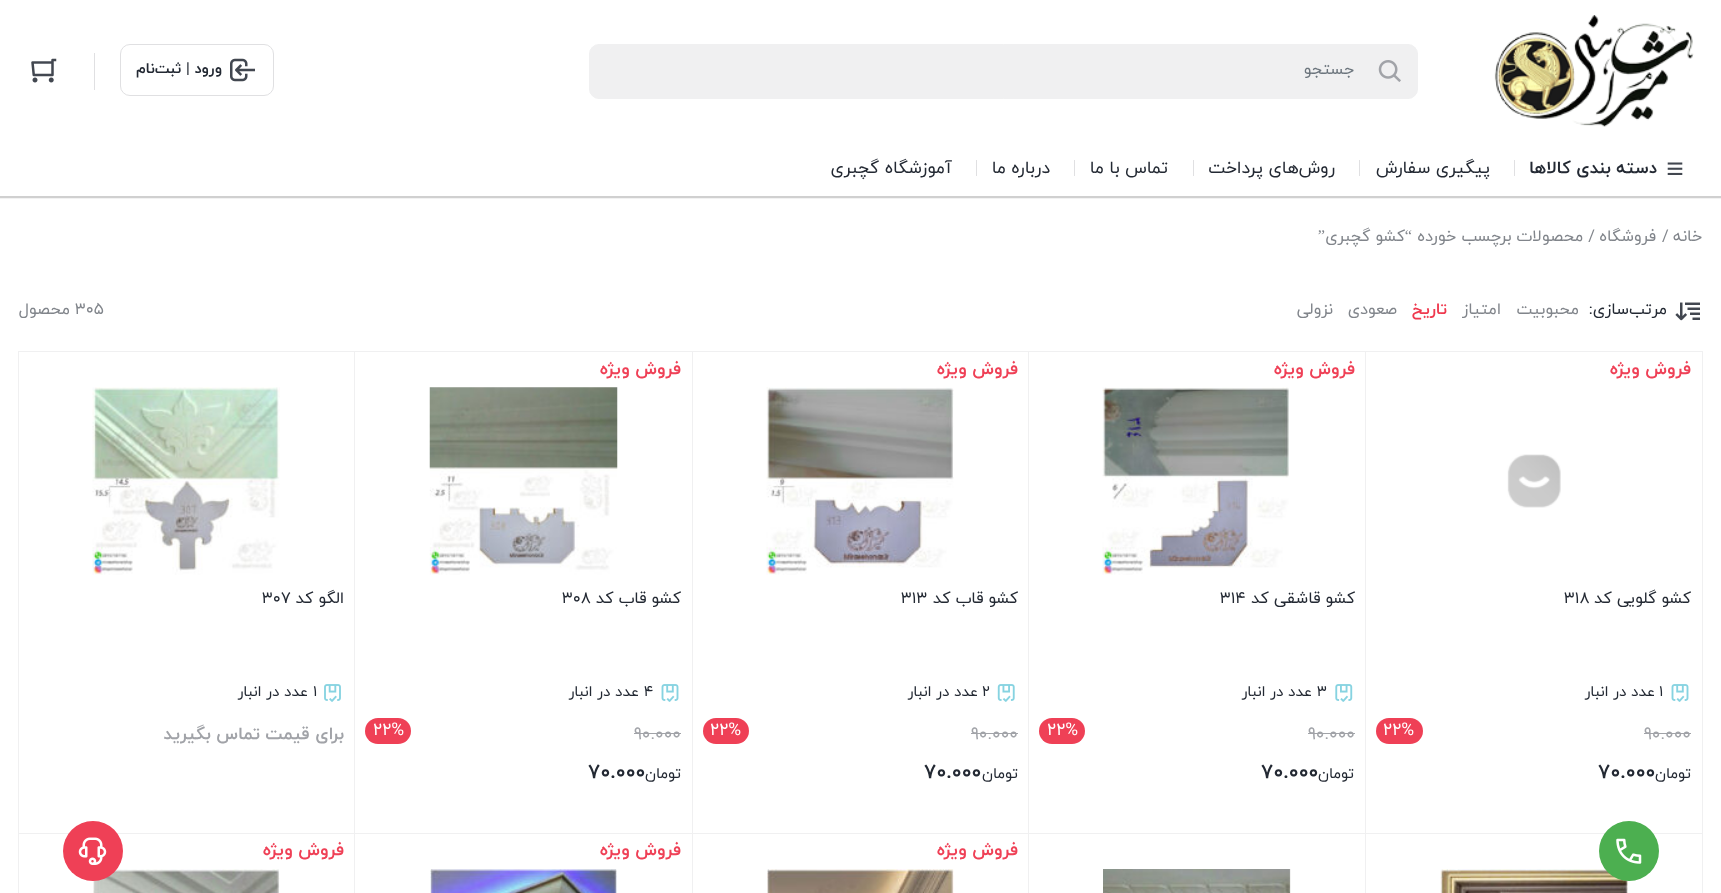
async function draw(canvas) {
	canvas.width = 1721;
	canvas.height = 893;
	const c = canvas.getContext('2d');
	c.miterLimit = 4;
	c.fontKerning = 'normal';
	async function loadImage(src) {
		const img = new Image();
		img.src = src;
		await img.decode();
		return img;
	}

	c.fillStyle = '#fff';
	c.fillRect(0, 0, 1721, 893);
	c.drawImage(await loadImage('img1.png'), 1494, 15, 200, 112);
	c.fillStyle = '#f0f0f1';
	c.beginPath();
	c.roundRect(589.5, 44.5, 828, 54, 9.5);
	c.fill();
	c.strokeStyle = '#f0f0f1';
	c.stroke();
	c.drawImage(await loadImage('img2.png'), 1378, 60, 23, 22);
	c.direction = 'rtl';
	c.font = '16.25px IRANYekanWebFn';
	c.fillStyle = '#6c757d';
	c.fillText('جستجو', 1354, 74);
	c.beginPath();
	c.roundRect(120.5, 44.5, 153, 51, 9.5);
	c.strokeStyle = '#e0e0e2';
	c.stroke();
	c.drawImage(await loadImage('img3.png'), 230, 58, 25, 24);
	c.font = 'bold 15px IRANYekanWebFn';
	c.fillStyle = '#232933';
	c.fillText('ورود | ثبت‌نام', 222, 73);
	c.fillStyle = '#e0e0e2';
	c.fillRect(94, 53, 1, 37);
	c.drawImage(await loadImage('img4.png'), 31, 58, 26, 25);
	c.fillStyle = '#f2f2f2';
	c.fillRect(0, 198, 1721, 1);
	c.fillStyle = '#d0d0d0';
	c.fillRect(0, 196, 1721, 2);
	c.drawImage(await loadImage('img5.png'), 1667, 162, 16, 13);
	c.font = 'bold 17.5px IRANYekanWebFn';
	c.fillStyle = '#232933';
	c.fillText('دسته بندی کالاها', 1657, 173);
	c.fillStyle = '#e0e0e2';
	c.fillRect(1514, 160, 1, 16);
	c.font = '17.5px IRANYekanWebFn';
	c.fillStyle = '#232933';
	c.fillText('پیگیری سفارش', 1490, 173);
	c.fillStyle = '#e0e0e2';
	c.fillRect(1359, 160, 1, 16);
	c.fillStyle = '#232933';
	c.fillText('روش‌های پرداخت', 1335, 173);
	c.fillStyle = '#e0e0e2';
	c.fillRect(1193, 160, 1, 16);
	c.fillStyle = '#232933';
	c.fillText('تماس با ما', 1168, 173);
	c.fillStyle = '#e0e0e2';
	c.fillRect(1074, 160, 1, 16);
	c.fillStyle = '#232933';
	c.fillText('درباره ما', 1050, 173);
	c.fillStyle = '#e0e0e2';
	c.fillRect(976, 160, 1, 16);
	c.fillStyle = '#232933';
	c.fillText('آموزشگاه گچبری', 952, 173);
	c.font = '16.25px IRANYekanWebFn';
	c.fillStyle = '#81858b';
	c.fillText('خانه', 1702, 241);
	c.direction = 'ltr';
	c.fillText('/', 1662, 241);
	c.direction = 'rtl';
	c.fillText('فروشگاه', 1656, 241);
	c.fillText('/ محصولات برچسب خورده', 1595, 241);
	c.font = '16.25px Liberation Serif';
	c.fillText('“', 1412, 241);
	c.font = '16.25px IRANYekanWebFn';
	c.fillText('کشو گچبری', 1405, 241);
	c.font = '16.25px Liberation Serif';
	c.fillText('”', 1325, 241);
	c.drawImage(await loadImage('img6.png'), 1675, 302, 25, 19);
	c.font = '16.25px IRANYekanWebFn';
	c.fillStyle = '#232933';
	c.fillText('مرتب‌سازی:', 1667, 314);
	c.fillStyle = '#81858b';
	c.fillText('محبوبیت', 1579, 314);
	c.fillText('امتیاز', 1501, 314);
	c.font = 'bold 16.25px IRANYekanWebFn';
	c.fillStyle = '#ef394e';
	c.fillText('تاریخ', 1447, 314);
	c.font = '16.25px IRANYekanWebFn';
	c.fillStyle = '#81858b';
	c.fillText('صعودی', 1397, 314);
	c.fillText('نزولی', 1333, 314);
	c.direction = 'ltr';
	c.fillText('305', 75, 314);
	c.direction = 'rtl';
	c.fillText('محصول', 70, 314);
	c.strokeStyle = '#f0f0f1';
	c.strokeRect(1365.5, 351.5, 337, 482);
	c.font = 'bold 17.5px IRANYekanWebFn';
	c.fillStyle = '#ef4056';
	c.fillText('فروش ویژه', 1691, 374);
	c.drawImage(await loadImage('img7.png'), 1507, 454, 54, 54);
	c.font = '16.25px IRANYekanWebFn';
	c.fillStyle = '#232933';
	c.fillText('کشو گلویی کد', 1691, 603);
	c.direction = 'ltr';
	c.fillText('318', 1564, 603);
	c.drawImage(await loadImage('img8.png'), 1671, 684, 18, 18);
	c.font = '15px IRANYekanWebFn';
	c.fillText('1', 1659, 696);
	c.direction = 'rtl';
	c.fillText('عدد در انبار', 1655, 696);
	c.direction = 'ltr';
	c.font = '17.5px IRANYekanWebFn';
	c.fillStyle = '#a1a3a8';
	c.fillText('90.000', 1644, 739);
	c.fillRect(1644, 733, 47, 1);
	c.fillStyle = '#ef4056';
	c.beginPath();
	c.roundRect(1376, 718, 47, 26, 13);
	c.fill();
	c.fillStyle = '#fff';
	c.fillText('22%', 1383, 735);
	c.direction = 'rtl';
	c.font = '15px IRANYekanWebFn';
	c.fillStyle = '#232933';
	c.fillText('تومان', 1691, 778);
	c.direction = 'ltr';
	c.font = 'bold 20px IRANYekanWebFn';
	c.fillText('70.000', 1598, 778);
	c.strokeRect(1028.5, 351.5, 337, 482);
	c.direction = 'rtl';
	c.font = 'bold 17.5px IRANYekanWebFn';
	c.fillStyle = '#ef4056';
	c.fillText('فروش ویژه', 1355, 374);
	c.drawImage(await loadImage('img9.png'), 1102, 387, 187, 188);
	c.font = '16.25px IRANYekanWebFn';
	c.fillStyle = '#232933';
	c.fillText('کشو قاشقی کد', 1355, 603);
	c.direction = 'ltr';
	c.fillText('314', 1220, 603);
	c.drawImage(await loadImage('img10.png'), 1335, 684, 18, 18);
	c.font = '15px IRANYekanWebFn';
	c.fillText('3', 1317, 696);
	c.direction = 'rtl';
	c.fillText('عدد در انبار', 1312, 696);
	c.direction = 'ltr';
	c.font = '17.5px IRANYekanWebFn';
	c.fillStyle = '#a1a3a8';
	c.fillText('90.000', 1308, 739);
	c.fillRect(1308, 733, 47, 1);
	c.fillStyle = '#ef4056';
	c.beginPath();
	c.roundRect(1039, 718, 46, 26, 13);
	c.fill();
	c.fillStyle = '#fff';
	c.fillText('22%', 1047, 735);
	c.direction = 'rtl';
	c.font = '15px IRANYekanWebFn';
	c.fillStyle = '#232933';
	c.fillText('تومان', 1354, 778);
	c.direction = 'ltr';
	c.font = 'bold 20px IRANYekanWebFn';
	c.fillText('70.000', 1261, 778);
	c.strokeRect(691.5, 351.5, 337, 482);
	c.direction = 'rtl';
	c.font = 'bold 17.5px IRANYekanWebFn';
	c.fillStyle = '#ef4056';
	c.fillText('فروش ویژه', 1018, 374);
	c.drawImage(await loadImage('img11.png'), 766, 387, 188, 188);
	c.font = '16.25px IRANYekanWebFn';
	c.fillStyle = '#232933';
	c.fillText('کشو قاب کد', 1018, 603);
	c.direction = 'ltr';
	c.fillText('313', 901, 603);
	c.drawImage(await loadImage('img12.png'), 997, 684, 18, 18);
	c.font = '15px IRANYekanWebFn';
	c.fillText('2', 982, 696);
	c.direction = 'rtl';
	c.fillText('عدد در انبار', 978, 696);
	c.direction = 'ltr';
	c.font = '17.5px IRANYekanWebFn';
	c.fillStyle = '#a1a3a8';
	c.fillText('90.000', 971, 739);
	c.fillRect(971, 733, 47, 1);
	c.fillStyle = '#ef4056';
	c.beginPath();
	c.roundRect(703, 718, 46, 26, 13);
	c.fill();
	c.fillStyle = '#fff';
	c.fillText('22%', 710, 735);
	c.direction = 'rtl';
	c.font = '15px IRANYekanWebFn';
	c.fillStyle = '#232933';
	c.fillText('تومان', 1018, 778);
	c.direction = 'ltr';
	c.font = 'bold 20px IRANYekanWebFn';
	c.fillText('70.000', 924, 778);
	c.fillStyle = '#fff';
	c.fillRect(691, 352, 1, 481);
	c.strokeRect(354.5, 351.5, 338, 482);
	c.direction = 'rtl';
	c.font = 'bold 17.5px IRANYekanWebFn';
	c.fillStyle = '#ef4056';
	c.fillText('فروش ویژه', 681, 374);
	c.drawImage(await loadImage('img13.png'), 429, 387, 189, 188);
	c.font = '16.25px IRANYekanWebFn';
	c.fillStyle = '#232933';
	c.fillText('کشو قاب کد', 681, 603);
	c.direction = 'ltr';
	c.fillText('308', 562, 603);
	c.drawImage(await loadImage('img8.png'), 661, 684, 18, 18);
	c.font = '15px IRANYekanWebFn';
	c.fillText('4', 644, 696);
	c.direction = 'rtl';
	c.fillText('عدد در انبار', 639, 696);
	c.direction = 'ltr';
	c.font = '17.5px IRANYekanWebFn';
	c.fillStyle = '#a1a3a8';
	c.fillText('90.000', 634, 739);
	c.fillRect(634, 733, 47, 1);
	c.fillStyle = '#ef4056';
	c.beginPath();
	c.roundRect(365, 718, 46, 26, 13);
	c.fill();
	c.fillStyle = '#fff';
	c.fillText('22%', 373, 735);
	c.direction = 'rtl';
	c.font = '15px IRANYekanWebFn';
	c.fillStyle = '#232933';
	c.fillText('تومان', 681, 778);
	c.direction = 'ltr';
	c.font = 'bold 20px IRANYekanWebFn';
	c.fillText('70.000', 588, 778);
	c.strokeRect(18.5, 351.5, 336, 482);
	c.drawImage(await loadImage('img14.png'), 92, 387, 188, 188);
	c.direction = 'rtl';
	c.font = '16.25px IRANYekanWebFn';
	c.fillText('الگو کد', 344, 603);
	c.direction = 'ltr';
	c.fillText('307', 262, 603);
	c.drawImage(await loadImage('img15.png'), 324, 684, 17, 18);
	c.font = '15px IRANYekanWebFn';
	c.fillText('1', 313, 696);
	c.direction = 'rtl';
	c.fillText('عدد در انبار', 308, 696);
	c.font = 'bold 17.5px IRANYekanWebFn';
	c.fillStyle = '#a1a3a8';
	c.fillText('برای قیمت تماس بگیرید', 344, 739);
	c.strokeRect(1365.5, 833.5, 337, 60);
	c.drawImage(await loadImage('img16.png'), 1440, 869, 188, 24);
	c.strokeRect(1028.5, 833.5, 337, 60);
	c.drawImage(await loadImage('img17.png'), 1103, 869, 188, 24);
	c.strokeRect(691.5, 833.5, 337, 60);
	c.fillStyle = '#ef4056';
	c.fillText('فروش ویژه', 1018, 855);
	c.drawImage(await loadImage('img18.png'), 767, 869, 187, 24);
	c.fillStyle = '#fff';
	c.fillRect(691, 834, 1, 59);
	c.strokeRect(354.5, 833.5, 338, 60);
	c.fillStyle = '#ef4056';
	c.fillText('فروش ویژه', 681, 855);
	c.drawImage(await loadImage('img19.png'), 430, 869, 187, 24);
	c.strokeRect(18.5, 833.5, 336, 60);
	c.fillText('فروش ویژه', 344, 855);
	c.drawImage(await loadImage('img20.png'), 93, 869, 187, 24);
	c.fillStyle = '#4caf50';
	c.beginPath();
	c.arc(1629, 851, 30, 0, 2 * Math.PI);
	c.fill();
	c.drawImage(await loadImage('img21.png'), 1616, 838, 26, 26);
	c.fillStyle = '#ef4056';
	c.beginPath();
	c.arc(93, 851, 30, 0, 2 * Math.PI);
	c.fill();
	c.drawImage(await loadImage('img22.png'), 78, 837, 29, 28);
}

draw(document.querySelector('canvas'));
